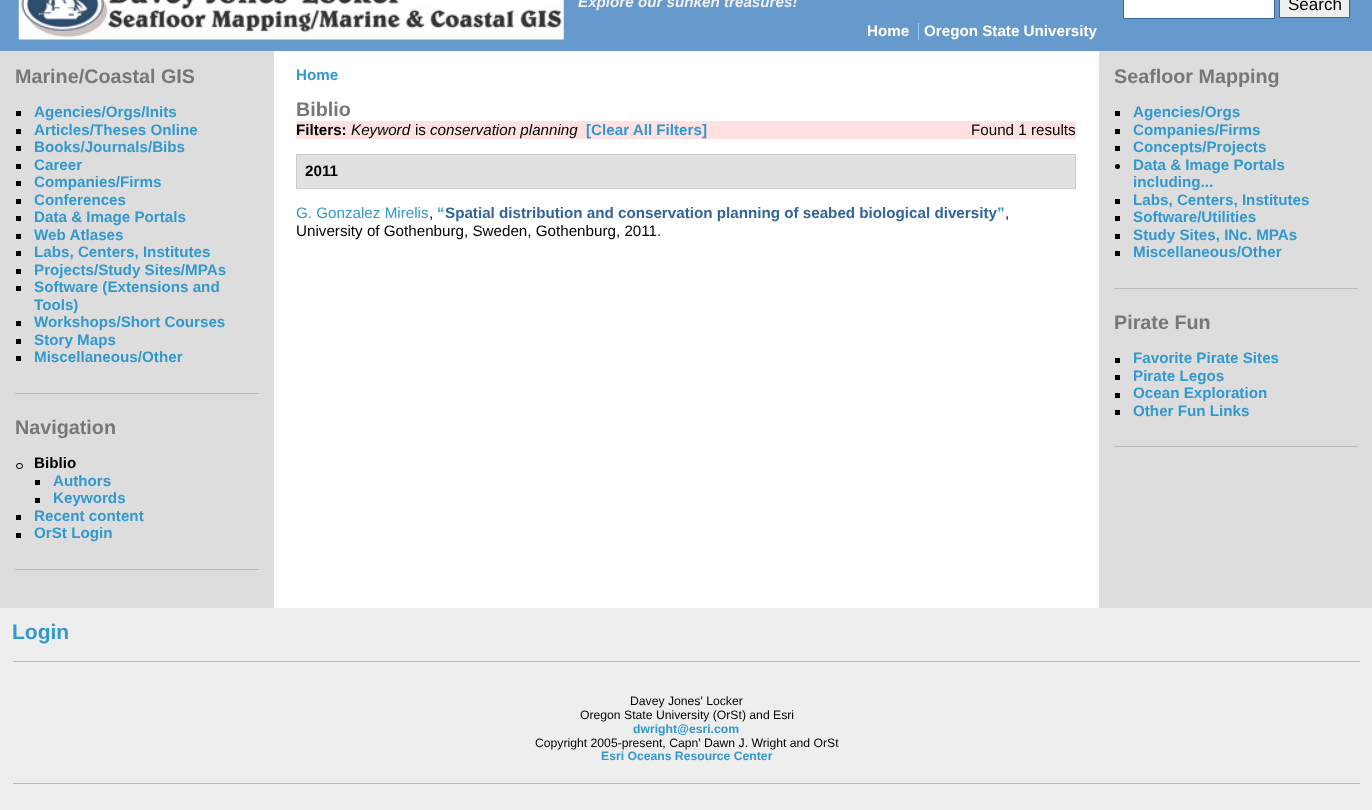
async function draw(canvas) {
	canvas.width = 1372;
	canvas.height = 810;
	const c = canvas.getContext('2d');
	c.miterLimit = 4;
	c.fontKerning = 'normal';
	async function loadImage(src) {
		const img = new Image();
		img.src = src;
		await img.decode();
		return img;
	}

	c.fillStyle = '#ddd';
	c.fillRect(0, 0, 1372, 810);
	c.fillStyle = '#69c';
	c.fillRect(0, 0, 1372, 51);
	c.drawImage(await loadImage('img1.png'), 18, 0, 546, 40);
	c.font = 'italic bold 15.2px Liberation Sans';
	c.fillStyle = '#eee';
	c.fillText('Explore our sunken treasures!', 578, 7);
	c.fillStyle = '#fff';
	c.beginPath();
	c.rect(1123.5, -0.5, 151, 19);
	c.fill();
	c.strokeStyle = '#369';
	c.stroke();
	c.fillStyle = '#efefef';
	c.beginPath();
	c.rect(1279.5, -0.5, 70, 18);
	c.fill();
	c.stroke();
	c.font = '17px Liberation Sans';
	c.fillStyle = '#000';
	c.fillText('Search', 1288, 10);
	c.font = 'bold 15.2px Liberation Sans';
	c.fillStyle = '#fff';
	c.fillText('Home', 867, 36);
	c.fillText('Oregon State University', 924, 36);
	for (const [x, y, w, h, color] of [
		[918, 23, 1, 17, '#9cf'],
		[274, 51, 825, 557, '#fff'],
		[15, 393, 244, 1, '#bbb'],
	]) {
		c.fillStyle = color;
		c.fillRect(x, y, w, h);
	}
	c.font = 'bold 19.75px Liberation Sans';
	c.fillStyle = '#777';
	c.fillText('Marine/Coastal GIS', 15, 83);
	c.fillStyle = '#000';
	c.fillRect(16, 111, 5, 5);
	c.font = 'bold 15.2px Liberation Sans';
	c.fillStyle = '#39c';
	c.fillText('Agencies/Orgs/Inits', 34, 117);
	c.fillStyle = '#000';
	c.fillRect(16, 129, 5, 5);
	c.fillStyle = '#39c';
	c.fillText('Articles/Theses Online', 34, 135);
	c.fillStyle = '#000';
	c.fillRect(16, 146, 5, 5);
	c.fillStyle = '#39c';
	c.fillText('Books/Journals/Bibs', 34, 152);
	c.fillStyle = '#000';
	c.fillRect(16, 164, 5, 5);
	c.fillStyle = '#39c';
	c.fillText('Career', 34, 170);
	c.fillStyle = '#000';
	c.fillRect(16, 181, 5, 5);
	c.fillStyle = '#39c';
	c.fillText('Companies/Firms', 34, 187);
	c.fillStyle = '#000';
	c.fillRect(16, 199, 5, 5);
	c.fillStyle = '#39c';
	c.fillText('Conferences', 34, 205);
	c.fillStyle = '#000';
	c.fillRect(16, 216, 5, 5);
	c.fillStyle = '#39c';
	c.fillText('Data & Image Portals', 34, 222);
	c.fillStyle = '#000';
	c.fillRect(16, 234, 5, 5);
	c.fillStyle = '#39c';
	c.fillText('Web Atlases', 34, 240);
	c.fillStyle = '#000';
	c.fillRect(16, 251, 5, 5);
	c.fillStyle = '#39c';
	c.fillText('Labs, Centers, Institutes', 34, 257);
	c.fillStyle = '#000';
	c.fillRect(16, 269, 5, 5);
	c.fillStyle = '#39c';
	c.fillText('Projects/Study Sites/MPAs', 34, 275);
	c.fillStyle = '#000';
	c.fillRect(16, 286, 5, 5);
	c.fillStyle = '#39c';
	c.fillText('Software (Extensions and', 34, 292);
	c.fillText('Tools)', 34, 310);
	c.fillStyle = '#000';
	c.fillRect(16, 321, 5, 5);
	c.fillStyle = '#39c';
	c.fillText('Workshops/Short Courses', 34, 327);
	c.fillStyle = '#000';
	c.fillRect(16, 339, 5, 5);
	c.fillStyle = '#39c';
	c.fillText('Story Maps', 34, 345);
	c.fillStyle = '#000';
	c.fillRect(16, 356, 5, 5);
	c.fillStyle = '#39c';
	c.fillText('Miscellaneous/Other', 34, 362);
	c.fillStyle = '#bbb';
	c.fillRect(15, 569, 244, 1);
	c.font = 'bold 19.75px Liberation Sans';
	c.fillStyle = '#777';
	c.fillText('Navigation', 15, 434);
	c.beginPath();
	c.roundRect(16.5, 463.5, 6, 5, 2.5);
	c.strokeStyle = '#000';
	c.stroke();
	c.font = 'bold 15.2px Liberation Sans';
	c.fillStyle = '#000';
	c.fillText('Biblio', 34, 468);
	c.fillRect(35, 480, 5, 5);
	c.fillStyle = '#39c';
	c.fillText('Authors', 53, 486);
	c.fillStyle = '#000';
	c.fillRect(35, 498, 5, 5);
	c.fillStyle = '#39c';
	c.fillText('Keywords', 53, 503);
	c.fillStyle = '#000';
	c.fillRect(16, 515, 5, 5);
	c.fillStyle = '#39c';
	c.fillText('Recent content', 34, 521);
	c.fillStyle = '#000';
	c.fillRect(16, 533, 5, 5);
	c.fillStyle = '#39c';
	c.fillText('OrSt Login', 34, 538);
	c.fillText('Home', 296, 80);
	c.font = 'bold 19.75px Liberation Sans';
	c.fillStyle = '#777';
	c.fillText('Biblio', 296, 116);
	c.fillStyle = '#ffe1e1';
	c.fillRect(296, 121, 780, 18);
	c.font = 'bold 15.2px Liberation Sans';
	c.fillStyle = '#000';
	c.fillText('Filters:', 296, 135);
	c.font = 'italic 15.2px Liberation Sans';
	c.fillText('Keyword', 351, 135);
	c.font = '15.2px Liberation Sans';
	c.fillText('is', 415, 135);
	c.font = 'italic 15.2px Liberation Sans';
	c.fillText('conservation planning', 430, 135);
	c.font = 'bold 15.2px Liberation Sans';
	c.fillStyle = '#39c';
	c.fillText('[Clear All Filters]', 586, 135);
	c.font = '15.2px Liberation Sans';
	c.fillStyle = '#000';
	c.fillText('Found 1 results', 971, 135);
	c.fillStyle = '#e1e1e1';
	c.beginPath();
	c.rect(296.5, 154.5, 779, 34);
	c.fill();
	c.strokeStyle = '#ccc';
	c.stroke();
	c.font = 'bold 15.2px Liberation Sans';
	c.fillStyle = '#000';
	c.fillText('2011', 305, 176);
	c.font = '15.2px Liberation Sans';
	c.fillStyle = '#39c';
	c.fillText('G. Gonzalez Mirelis', 296, 218);
	c.font = 'bold 15.2px Liberation Sans';
	c.fillText('“', 437, 218);
	c.fillStyle = '#336599';
	c.fillText('Spatial distribution and conservation planning of seabed biological diversity', 445, 218);
	c.fillStyle = '#39c';
	c.fillText('”', 997, 218);
	c.font = '15.2px Liberation Sans';
	c.fillStyle = '#000';
	for (const [text, x, y] of [
		[',', 429, 218],
		[',', 1005, 218],
		['University of Gothenburg, Sweden, Gothenburg, 2011.', 296, 236],
	]) {
		c.fillText(text, x, y);
	}
	c.fillStyle = '#bbb';
	c.fillRect(1114, 288, 244, 1);
	c.font = 'bold 19.75px Liberation Sans';
	c.fillStyle = '#777';
	c.fillText('Seafloor Mapping', 1114, 83);
	c.fillStyle = '#000';
	c.fillRect(1115, 111, 5, 5);
	c.font = 'bold 15.2px Liberation Sans';
	c.fillStyle = '#39c';
	c.fillText('Agencies/Orgs', 1133, 117);
	c.fillStyle = '#000';
	c.fillRect(1115, 129, 5, 5);
	c.fillStyle = '#39c';
	c.fillText('Companies/Firms', 1133, 135);
	c.fillStyle = '#000';
	c.fillRect(1115, 146, 5, 5);
	c.fillStyle = '#39c';
	c.fillText('Concepts/Projects', 1133, 152);
	c.fillStyle = '#000';
	c.beginPath();
	c.arc(1117.5, 166.5, 2.5, 0, 2 * Math.PI);
	c.fill();
	c.fillStyle = '#39c';
	c.fillText('Data & Image Portals', 1133, 170);
	c.fillText('including...', 1133, 187);
	c.fillStyle = '#000';
	c.fillRect(1115, 199, 5, 5);
	c.fillStyle = '#39c';
	c.fillText('Labs, Centers, Institutes', 1133, 205);
	c.fillStyle = '#000';
	c.fillRect(1115, 216, 5, 5);
	c.fillStyle = '#39c';
	c.fillText('Software/Utilities', 1133, 222);
	c.fillStyle = '#000';
	c.fillRect(1115, 234, 5, 5);
	c.fillStyle = '#39c';
	c.fillText('Study Sites, INc. MPAs', 1133, 240);
	c.fillStyle = '#000';
	c.fillRect(1115, 251, 5, 5);
	c.fillStyle = '#39c';
	c.fillText('Miscellaneous/Other', 1133, 257);
	c.fillStyle = '#bbb';
	c.fillRect(1114, 446, 244, 1);
	c.font = 'bold 19.75px Liberation Sans';
	c.fillStyle = '#777';
	c.fillText('Pirate Fun', 1114, 329);
	c.fillStyle = '#000';
	c.fillRect(1115, 358, 5, 5);
	c.font = 'bold 15.2px Liberation Sans';
	c.fillStyle = '#39c';
	c.fillText('Favorite Pirate Sites', 1133, 363);
	c.fillStyle = '#000';
	c.fillRect(1115, 375, 5, 5);
	c.fillStyle = '#39c';
	c.fillText('Pirate Legos', 1133, 381);
	c.fillStyle = '#000';
	c.fillRect(1115, 393, 5, 5);
	c.fillStyle = '#39c';
	c.fillText('Ocean Exploration', 1133, 398);
	c.fillStyle = '#000';
	c.fillRect(1115, 410, 5, 5);
	c.fillStyle = '#39c';
	c.fillText('Other Fun Links', 1133, 416);
	c.fillStyle = '#eee';
	c.fillRect(0, 608, 1372, 202);
	c.fillStyle = '#bbb';
	c.fillRect(13, 661, 1347, 1);
	c.font = 'bold 21px Liberation Sans';
	c.fillStyle = '#39c';
	c.fillText('Login', 12, 639);
	c.fillStyle = '#bbb';
	c.fillRect(13, 783, 1347, 1);
	c.font = '12.2px Liberation Sans';
	c.fillStyle = '#000';
	c.fillText('Davey Jones\' Locker', 630, 705);
	c.fillText('Oregon State University (OrSt) and Esri', 580, 719);
	c.font = 'bold 12.2px Liberation Sans';
	c.fillStyle = '#39c';
	c.fillText('dwright@esri.com', 633, 733);
	c.font = '12.2px Liberation Sans';
	c.fillStyle = '#000';
	c.fillText('Copyright 2005-present, Capn\' Dawn J. Wright and OrSt', 535, 747);
	c.font = 'bold 12.2px Liberation Sans';
	c.fillStyle = '#39c';
	c.fillText('Esri Oceans Resource Center', 601, 760);
}

draw(document.querySelector('canvas'));
